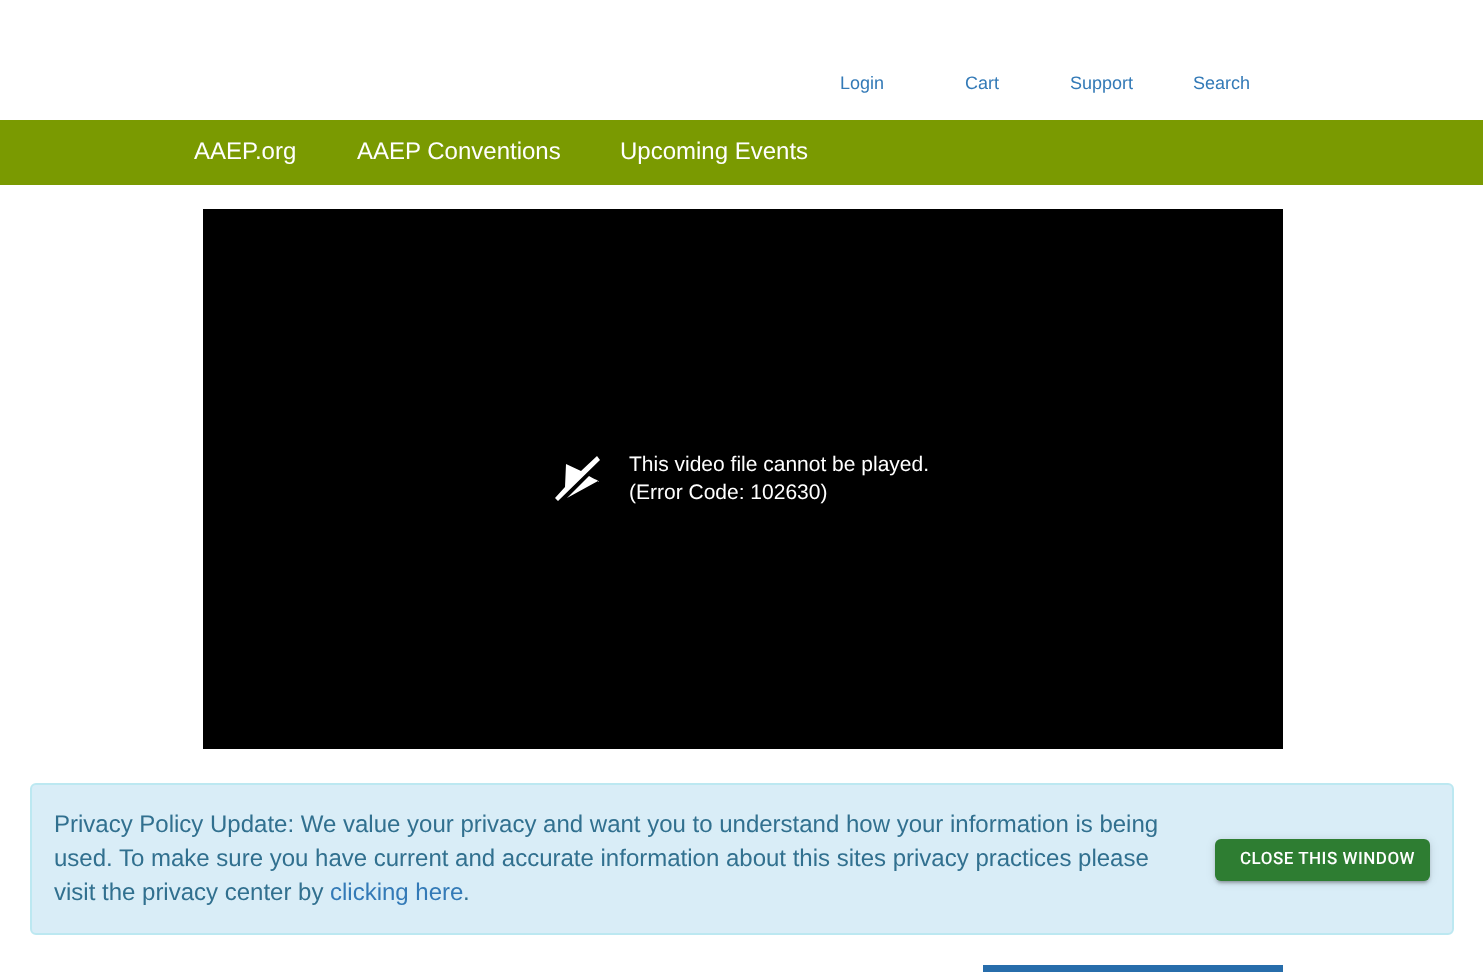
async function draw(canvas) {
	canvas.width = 1483;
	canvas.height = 972;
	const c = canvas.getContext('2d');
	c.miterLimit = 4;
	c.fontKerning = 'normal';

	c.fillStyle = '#fff';
	c.fillRect(0, 0, 1483, 972);
	c.font = '18px Liberation Sans';
	c.fillStyle = '#337ab7';
	for (const [text, x, y] of [
		['Login', 840, 89],
		['Cart', 965, 89],
		['Support', 1070, 89],
		['Search', 1193, 89],
	]) {
		c.fillText(text, x, y);
	}
	c.fillStyle = '#7a9a01';
	c.fillRect(0, 120, 1483, 65);
	c.font = '24px Liberation Sans';
	c.fillStyle = '#fff';
	for (const [text, x, y] of [
		['AAEP.org', 194, 159],
		['AAEP Conventions', 357, 159],
		['Upcoming Events', 620, 159],
	]) {
		c.fillText(text, x, y);
	}
	c.fillStyle = '#000';
	c.fillRect(203, 209, 1080, 540);
	c.fillStyle = '#fff';
	c.beginPath();
	c.moveTo(598, 481);
	c.lineTo(567, 498);
	c.lineTo(589, 476);
	c.bezierCurveTo(598, 481, 600, 481, 598, 482);
	c.closePath();
	c.moveTo(597, 456);
	c.lineTo(581, 471);
	c.lineTo(566, 464);
	c.lineTo(565, 487);
	c.lineTo(555, 498);
	c.lineTo(558, 501);
	c.lineTo(600, 460);
	c.closePath();
	c.fill();
	c.font = '21px Liberation Sans';
	c.fillText('This video file cannot be played.', 629, 471);
	c.fillText('(Error Code: 102630)', 629, 499);
	c.fillStyle = '#276dab';
	c.fillRect(983, 965, 300, 7);
	c.fillStyle = '#d9edf7';
	c.beginPath();
	c.roundRect(31, 784, 1422, 150, 5);
	c.fill();
	c.strokeStyle = '#bce8f1';
	c.lineWidth = 2;
	c.stroke();
	c.font = '24px Liberation Sans';
	c.fillStyle = '#31708f';
	for (const [text, x, y] of [
		['Privacy Policy Update: We value your privacy and want you to understand how your information is being', 54, 832],
		['used. To make sure you have current and accurate information about this sites privacy practices please', 54, 866],
		['visit the privacy center by', 54, 900],
	]) {
		c.fillText(text, x, y);
	}
	c.fillStyle = '#337ab7';
	c.fillText('clicking here', 330, 900);
	c.fillStyle = '#31708f';
	c.fillText('.', 463, 900);
	c.fillStyle = '#0000001f';
	c.filter = 'blur(4px)';
	c.beginPath();
	c.roundRect(1215, 840, 215, 42, 6);
	c.fill();
	c.filter = 'none';
	c.fillStyle = '#00000024';
	c.filter = 'blur(1.5px)';
	c.beginPath();
	c.roundRect(1215, 842, 215, 42, 6);
	c.fill();
	c.filter = 'none';
	c.fillStyle = '#00000033';
	c.filter = 'blur(1px)';
	c.beginPath();
	c.roundRect(1218, 846, 209, 36, 3);
	c.fill();
	c.filter = 'none';
	c.fillStyle = '#2e7d32';
	c.beginPath();
	c.roundRect(1215, 839, 215, 42, 6);
	c.fill();
	c.letterSpacing = '0.5px';
	c.font = '500 17px Roboto';
	c.fillStyle = '#fff';
	c.fillText('CLOSE THIS WINDOW', 1240, 864);
}

draw(document.querySelector('canvas'));
